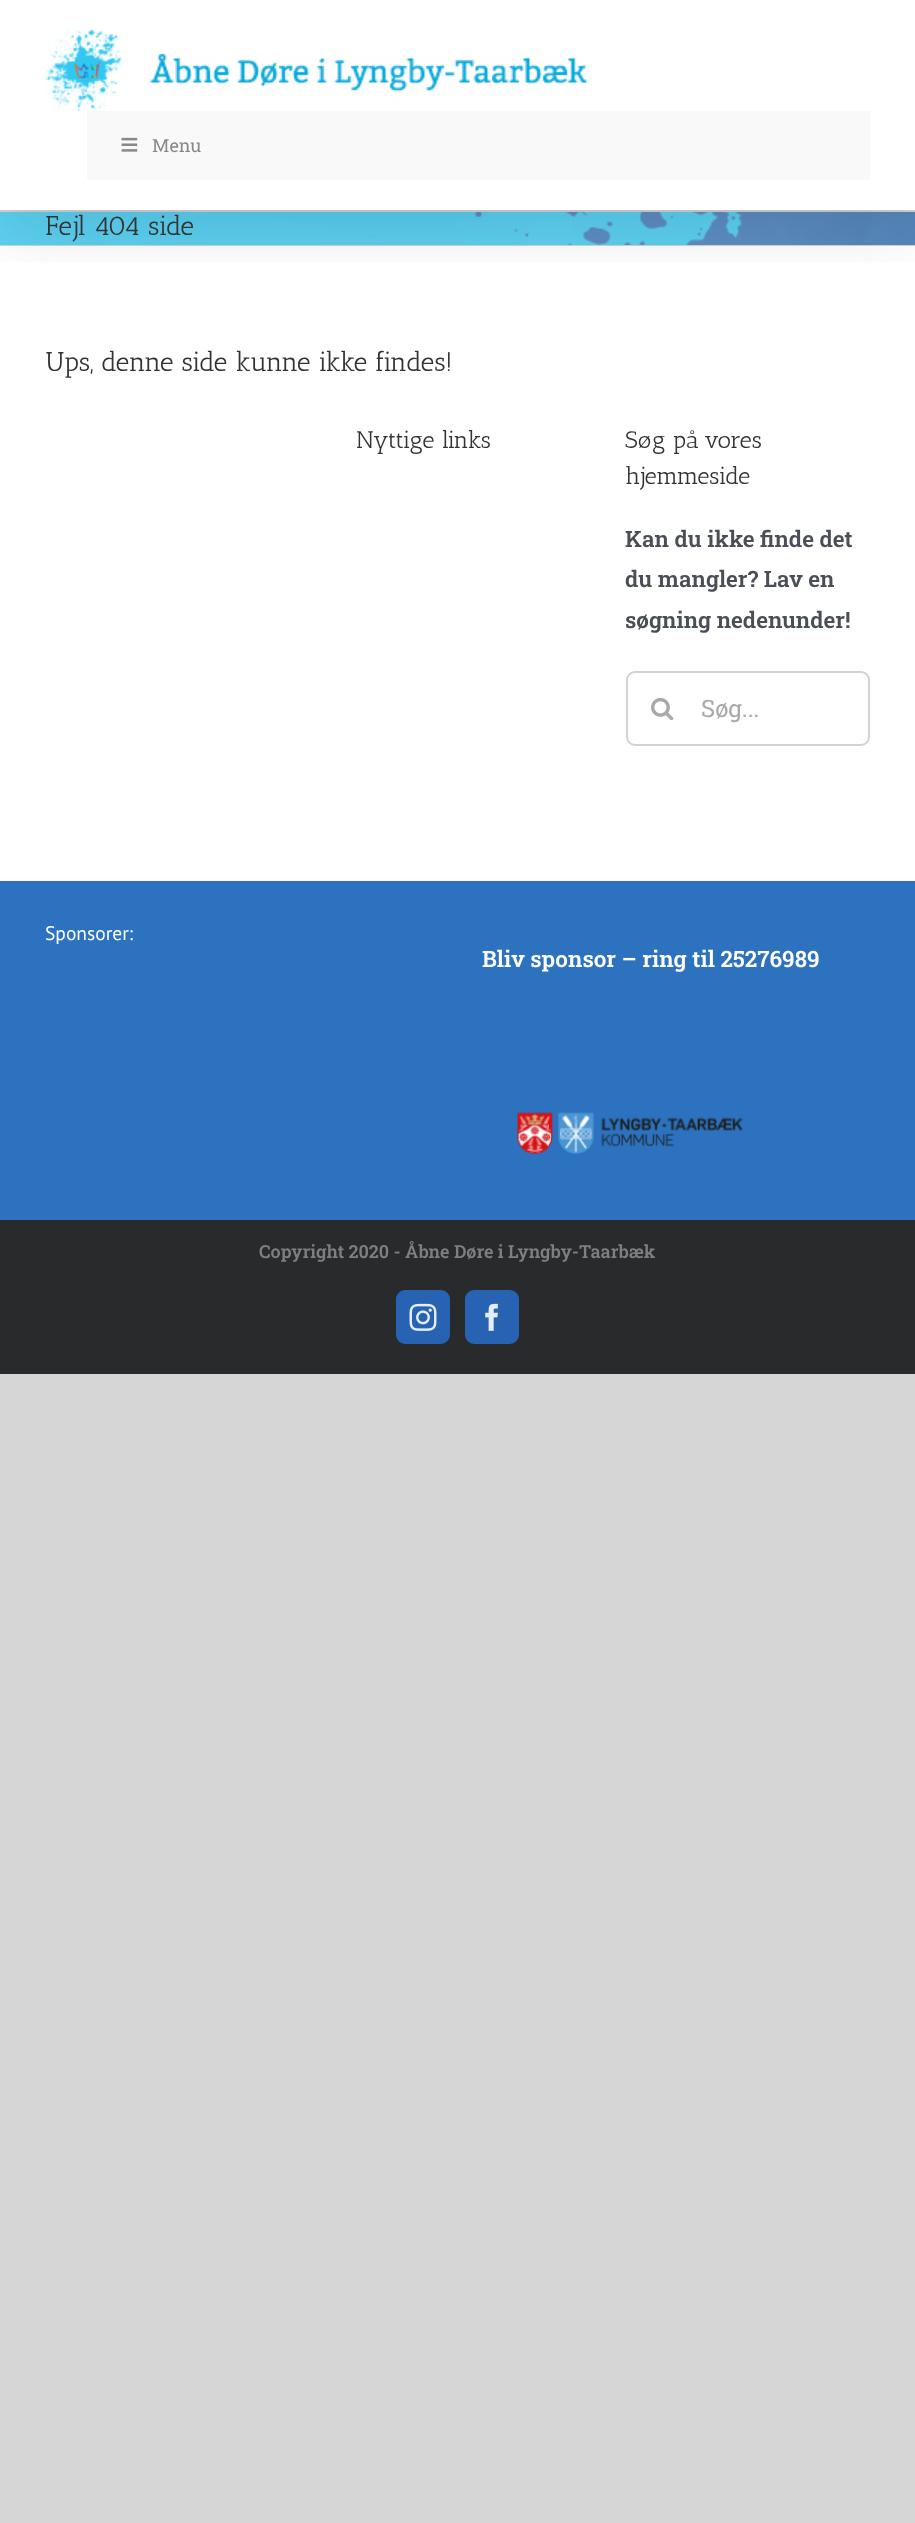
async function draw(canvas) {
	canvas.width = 915;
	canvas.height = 2523;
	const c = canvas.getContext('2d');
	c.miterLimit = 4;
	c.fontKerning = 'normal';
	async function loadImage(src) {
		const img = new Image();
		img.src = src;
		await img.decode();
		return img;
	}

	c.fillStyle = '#d7d6d6';
	c.fillRect(0, 0, 915, 2523);
	c.fillStyle = '#fff';
	c.fillRect(0, 0, 915, 210);
	c.fillStyle = '#31c8f2';
	c.fillRect(0, 212, 743, 33);
	c.drawImage(await loadImage('img3.png'), 0, 212, 915, 33);
	for (const [x, y, w, h, color] of [
		[0, 210, 915, 2, '#d2d3d4'],
		[0, 245, 915, 1, '#d2d3d4'],
		[0, 246, 915, 635, '#fff'],
	]) {
		c.fillStyle = color;
		c.fillRect(x, y, w, h);
	}
	c.save();
	c.beginPath();
	c.rect(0, 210, 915, 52);
	c.clip();
	c.fillStyle = '#00000024';
	c.filter = 'blur(37.5px)';
	c.beginPath();
	c.rect(3, 18, 909, 204);
	c.fill();
	c.filter = 'none';
	c.restore();
	c.drawImage(await loadImage('img1.png'), 45, 30, 542, 81);
	c.fillStyle = '#f9f9f9';
	c.fillRect(87, 111, 783, 69);
	c.drawImage(await loadImage('img2.png'), 121, 137, 17, 15);
	c.font = '18px Roboto Slab';
	c.fillStyle = '#888';
	c.fillText('Menu', 152, 152);
	c.font = '27px Antic Slab';
	c.fillStyle = '#333';
	c.fillText('Fejl 404 side', 45, 235);
	c.fillText('Ups, denne side kunne ikke findes!', 45, 371);
	c.font = '24px Antic Slab';
	for (const [text, x, y] of [
		['Nyttige links', 356, 448],
		['Søg på vores', 625, 448],
		['hjemmeside', 625, 484],
	]) {
		c.fillText(text, x, y);
	}
	c.font = '600 22.5px Roboto Slab';
	c.fillStyle = '#4a4e57';
	for (const [text, x, y] of [
		['Kan du ikke finde det', 625, 547],
		['du mangler? Lav en', 625, 587],
		['søgning nedenunder!', 625, 628],
	]) {
		c.fillText(text, x, y);
	}
	c.beginPath();
	c.roundRect(627, 672, 242, 73, 8);
	c.strokeStyle = '#d2d2d2';
	c.lineWidth = 2;
	c.stroke();
	c.drawImage(await loadImage('img4.png'), 651, 697, 23, 24);
	c.font = '24px Roboto Slab';
	c.fillStyle = '#aaa9a9';
	c.fillText('Søg...', 701, 717);
	c.fillStyle = '#2d72be';
	c.fillRect(0, 881, 915, 339);
	c.font = '19.5px PT Sans';
	c.fillStyle = '#fff';
	c.fillText('Sponsorer:', 45, 940);
	c.font = '600 22.5px Roboto Slab';
	c.fillText('Bliv sponsor – ring til 25276989', 482, 967);
	c.drawImage(await loadImage('img5.png'), 517, 1112, 226, 43);
	c.fillStyle = '#282a2b';
	c.fillRect(0, 1220, 915, 154);
	c.font = '600 18px Roboto Slab';
	c.fillStyle = '#7e7f80';
	c.fillText('Copyright 2020 - Åbne Døre i Lyngby-Taarbæk', 259, 1258);
	c.fillStyle = '#2763b2';
	c.beginPath();
	c.roundRect(397, 1291, 52, 52, 8);
	c.fill();
	c.strokeStyle = '#2763b2';
	c.stroke();
	c.drawImage(await loadImage('img6.png'), 409, 1303, 28, 28);
	c.beginPath();
	c.roundRect(466, 1291, 52, 52, 8);
	c.fill();
	c.stroke();
	c.drawImage(await loadImage('img7.png'), 485, 1303, 13, 28);
}

draw(document.querySelector('canvas'));
